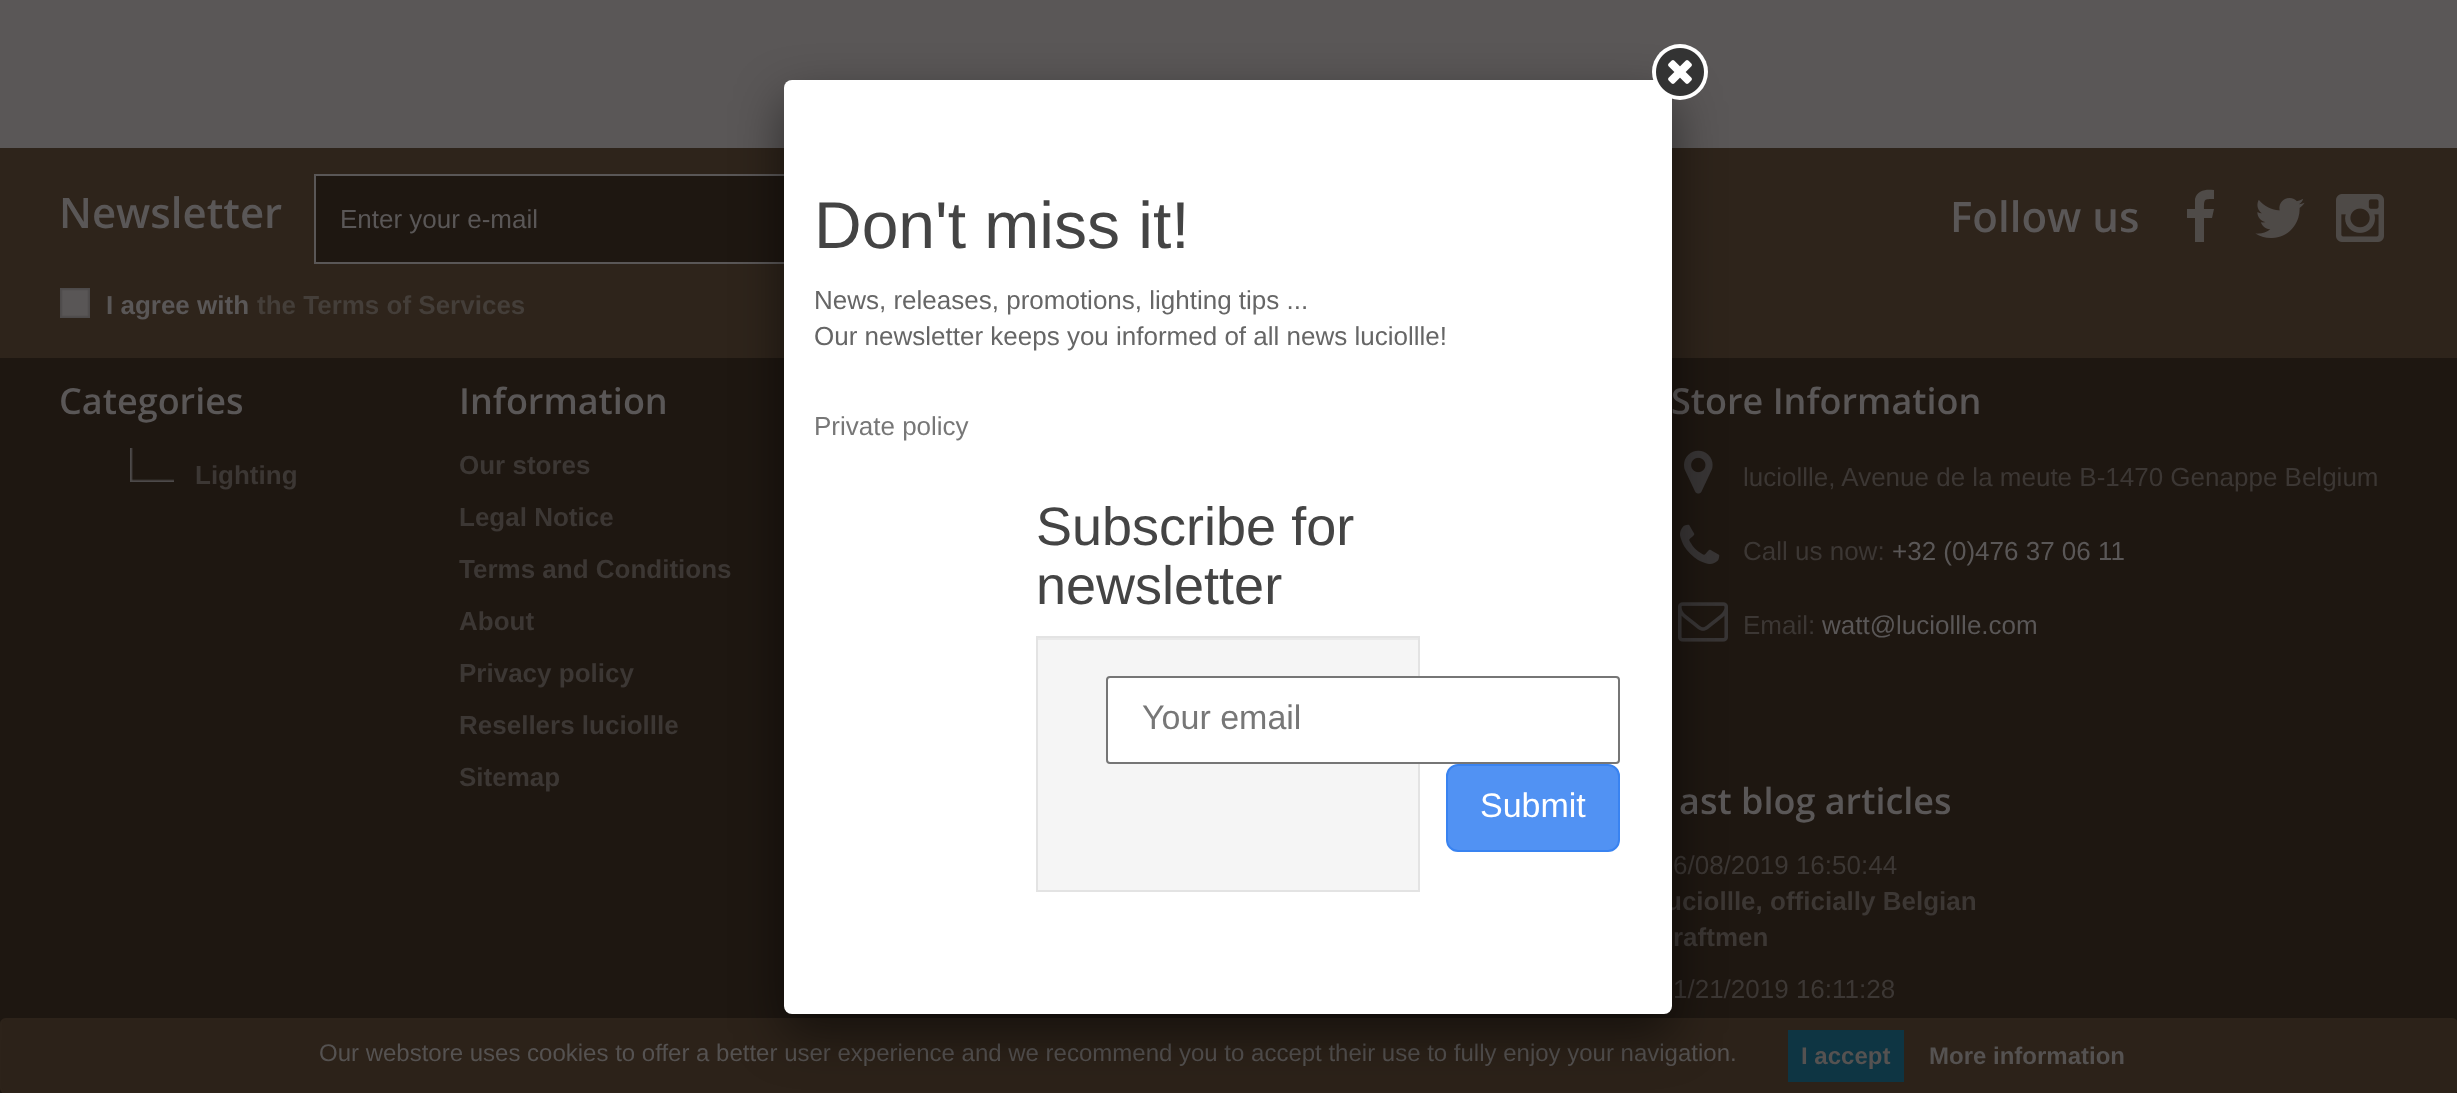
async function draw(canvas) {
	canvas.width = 2457;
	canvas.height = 1093;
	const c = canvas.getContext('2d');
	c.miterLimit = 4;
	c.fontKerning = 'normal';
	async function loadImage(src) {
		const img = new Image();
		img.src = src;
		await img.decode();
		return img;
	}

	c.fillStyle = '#5a5757';
	c.fillRect(0, 0, 2457, 1093);
	c.fillStyle = '#1e1711';
	c.fillRect(0, 358, 2457, 735);
	c.fillStyle = '#2e241b';
	c.fillRect(0, 148, 2457, 210);
	c.font = '600 42px Open Sans';
	c.fillStyle = '#5a5757';
	c.fillText('Newsletter', 59, 228);
	c.fillStyle = '#1e1711';
	c.fillRect(316, 176, 468, 86);
	c.strokeStyle = '#5a5757';
	c.lineWidth = 2;
	c.strokeRect(315, 175, 598, 88);
	c.font = '26px Liberation Sans';
	c.fillStyle = '#5a5757';
	c.fillText('Enter your e-mail', 340, 228);
	c.drawImage(await loadImage('img1.png'), 60, 288, 30, 30);
	c.font = 'bold 26px Liberation Sans';
	c.fillText('I agree with', 106, 314);
	c.fillStyle = '#443e39';
	c.fillText('the Terms of Services', 257, 314);
	c.font = '600 42px Open Sans';
	c.fillStyle = '#5a5757';
	c.fillText('Follow us', 1950, 232);
	c.fillStyle = '#4f4b48';
	c.beginPath();
	c.moveTo(2214, 190);
	c.lineTo(2214, 199);
	c.bezierCurveTo(2204, 199, 2204, 199, 2204, 209);
	c.lineTo(2214, 209);
	c.lineTo(2212, 218);
	c.lineTo(2204, 218);
	c.lineTo(2204, 242);
	c.lineTo(2195, 242);
	c.lineTo(2195, 218);
	c.lineTo(2187, 218);
	c.lineTo(2187, 209);
	c.lineTo(2195, 209);
	c.lineTo(2195, 199);
	c.bezierCurveTo(2197, 190, 2206, 189, 2214, 190);
	c.closePath();
	c.fill();
	c.drawImage(await loadImage('img2.png'), 2255, 198, 50, 40);
	c.drawImage(await loadImage('img3.png'), 2336, 194, 48, 48);
	c.font = '600 36px Open Sans';
	c.fillStyle = '#5a5757';
	c.fillText('Categories', 59, 414);
	c.drawImage(await loadImage('img4.png'), 130, 448, 44, 34);
	c.font = 'bold 26px Liberation Sans';
	c.fillStyle = '#3c3734';
	c.fillText('Lighting', 195, 484);
	c.font = '600 36px Open Sans';
	c.fillStyle = '#5a5757';
	c.fillText('Information', 459, 414);
	c.font = 'bold 26px Liberation Sans';
	c.fillStyle = '#3c3734';
	for (const [text, x, y] of [
		['Our stores', 459, 474],
		['Legal Notice', 459, 526],
		['Terms and Conditions', 459, 578],
		['About', 459, 630],
		['Privacy policy', 459, 682],
		['Resellers luciollle', 459, 734],
		['Sitemap', 459, 786],
	]) {
		c.fillText(text, x, y);
	}
	c.font = '600 36px Open Sans';
	c.fillStyle = '#5a5757';
	c.fillText('Store Information', 1671, 414);
	c.drawImage(await loadImage('img5.png'), 1684, 450, 29, 44);
	c.font = '26px Liberation Sans';
	c.fillStyle = '#3c3734';
	c.fillText('luciollle, Avenue de la meute B-1470 Genappe Belgium', 1743, 486);
	c.drawImage(await loadImage('img6.png'), 1680, 524, 40, 40);
	c.fillText('Call us now:', 1743, 560);
	c.fillStyle = '#5a5757';
	c.fillText('+32 (0)476 37 06 11', 1892, 560);
	c.drawImage(await loadImage('img7.png'), 1678, 602, 50, 40);
	c.fillStyle = '#3c3734';
	c.fillText('Email:', 1743, 634);
	c.fillStyle = '#5a5757';
	c.fillText('watt@luciollle.com', 1822, 634);
	c.font = '600 36px Open Sans';
	c.fillText('ast blog articles', 1679, 814);
	c.font = '26px Liberation Sans';
	c.fillStyle = '#3c3734';
	c.fillText('6/08/2019 16:50:44', 1673, 874);
	c.font = 'bold 26px Liberation Sans';
	c.fillText('uciollle, officially Belgian', 1666, 910);
	c.fillText('raftmen', 1673, 946);
	c.font = '26px Liberation Sans';
	c.fillText('1/21/2019 16:11:28', 1673, 998);
	c.fillStyle = '#2e241be6';
	c.beginPath();
	c.roundRect(0, 1018, 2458, 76, 6);
	c.fill();
	c.beginPath();
	c.roundRect(1, 1019, 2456, 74, 5);
	c.strokeStyle = '#2e241be6';
	c.stroke();
	c.font = '24px Liberation Sans';
	c.fillStyle = '#555251';
	c.fillText('Our webstore uses cookies to offer a better user experience and we recommend you to accept their use to fully enjoy your navigation.', 319, 1061);
	c.fillStyle = '#0b3748e6';
	c.fillRect(1788, 1030, 116, 52);
	c.font = 'bold 24px Liberation Sans';
	c.fillStyle = '#555251';
	c.fillText('I accept', 1801, 1064);
	c.fillText('More information', 1929, 1064);
	c.fillStyle = '#00000080';
	c.filter = 'blur(25px)';
	c.beginPath();
	c.roundRect(784, 100, 888, 934, 8);
	c.fill();
	c.filter = 'none';
	c.fillStyle = '#fff';
	c.beginPath();
	c.roundRect(784, 80, 888, 934, 8);
	c.fill();
	c.beginPath();
	c.arc(1680, 72, 28, 0, 2 * Math.PI);
	c.fill();
	c.drawImage(await loadImage('img8.png'), 1656, 48, 48, 48);
	c.font = '66px Liberation Sans';
	c.fillStyle = '#444';
	c.fillText('Don\'t miss it!', 814, 248);
	c.font = '26px Liberation Sans';
	c.fillStyle = '#666';
	c.fillText('News, releases, promotions, lighting tips ...', 814, 309);
	c.fillText('Our newsletter keeps you informed of all news luciollle!', 814, 345);
	c.fillStyle = '#777';
	c.fillText('Private policy', 814, 435);
	c.font = '54px Liberation Sans';
	c.fillStyle = '#444';
	c.fillText('Subscribe for', 1036, 545);
	c.fillText('newsletter', 1036, 604);
	c.fillStyle = '#f5f5f5';
	c.fillRect(1038, 640, 380, 250);
	c.fillStyle = '#e9e9e9';
	c.fillRect(1038, 638, 380, 2);
	c.strokeStyle = '#e3e3e3';
	c.strokeRect(1037, 637, 382, 254);
	c.fillStyle = '#fff';
	c.beginPath();
	c.roundRect(1107, 677, 512, 86, 3);
	c.fill();
	c.strokeStyle = '#767676';
	c.stroke();
	c.font = '34px Liberation Sans';
	c.fillStyle = '#777';
	c.fillText('Your email', 1142, 729);
	c.fillStyle = '#5192f3';
	c.beginPath();
	c.roundRect(1447, 765, 172, 86, 11);
	c.fill();
	c.strokeStyle = '#3983f1';
	c.stroke();
	c.fillStyle = '#fff';
	c.fillText('Submit', 1480, 817);
}

draw(document.querySelector('canvas'));
